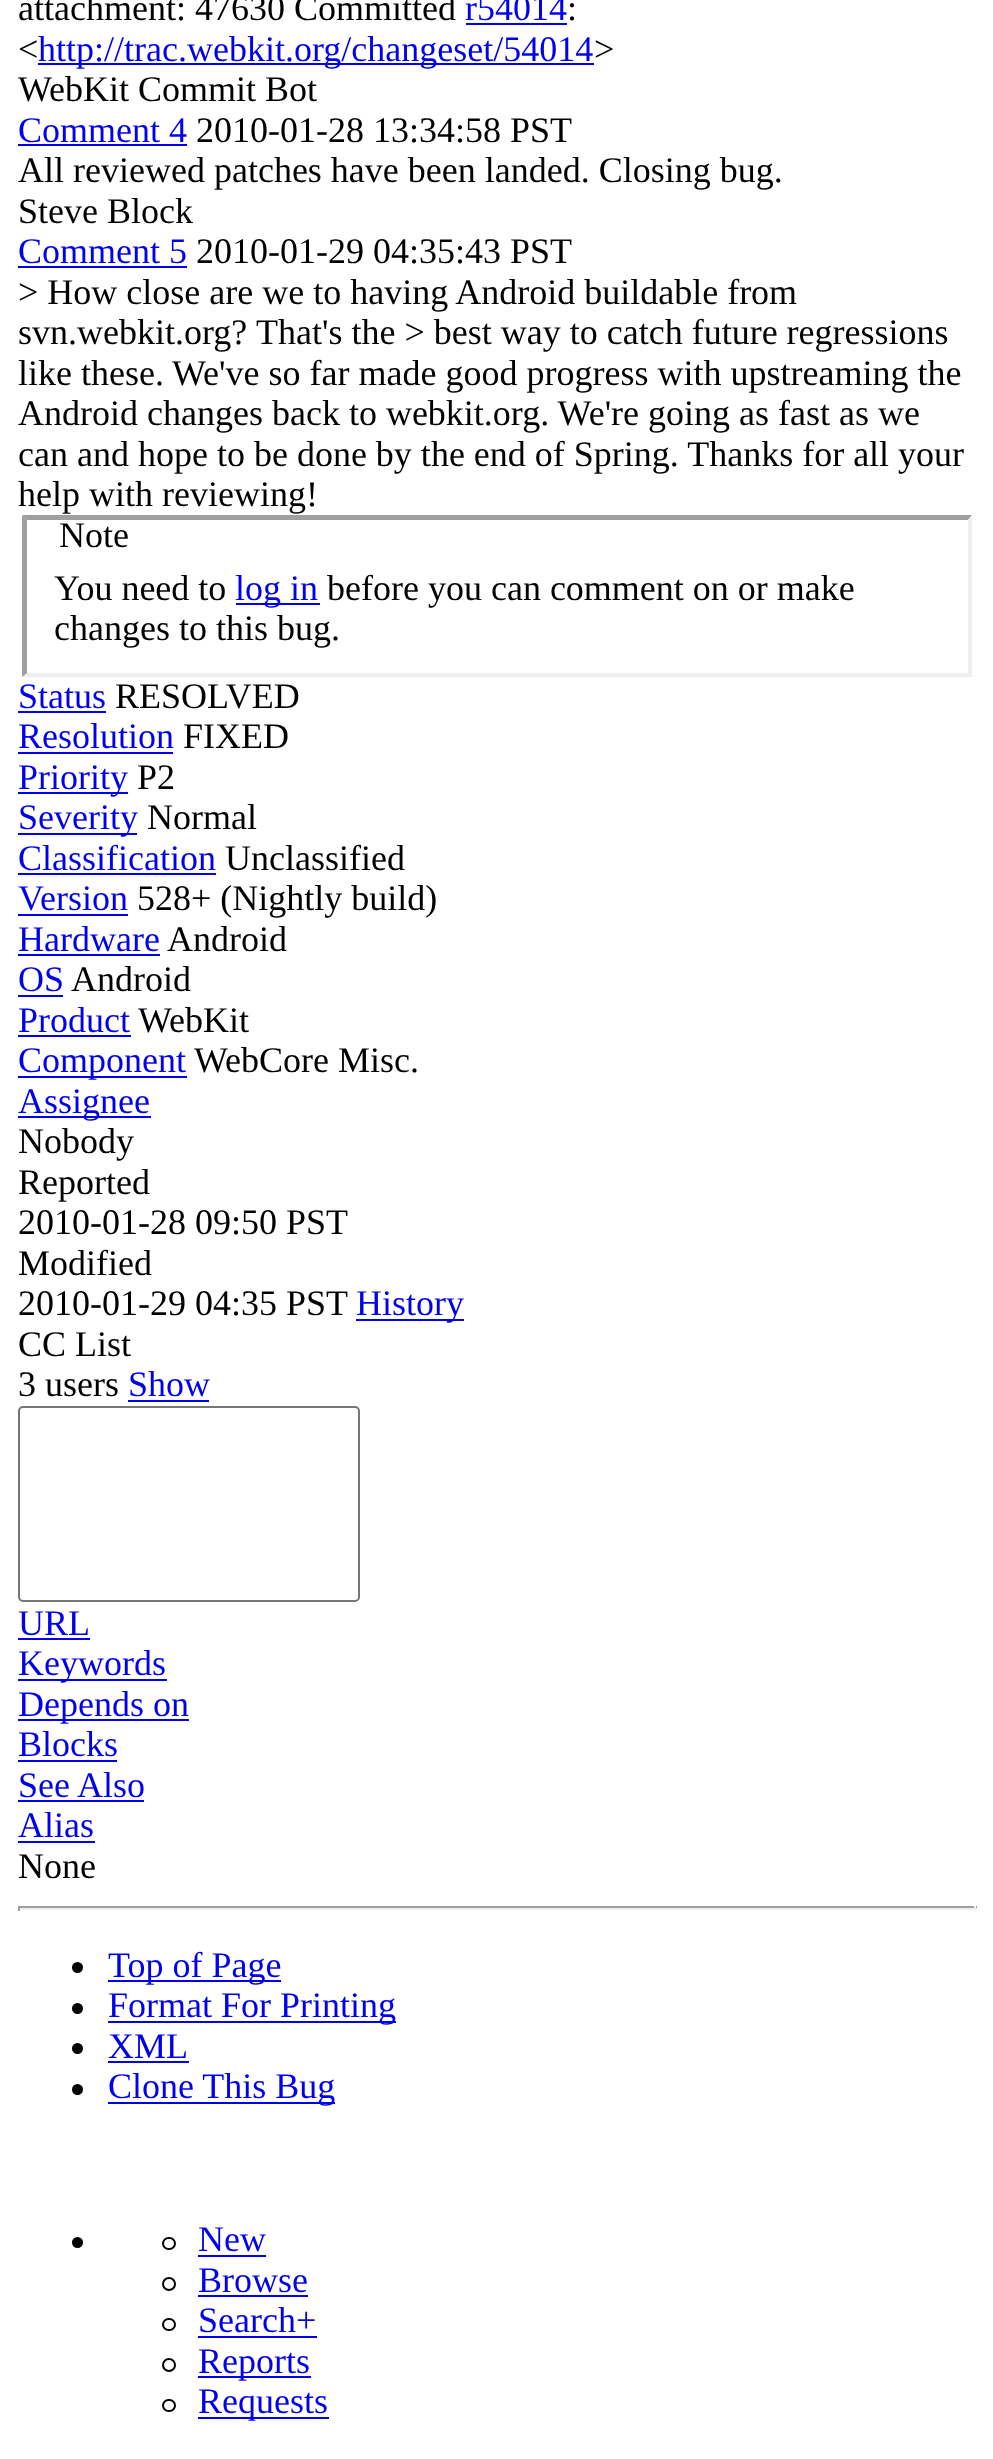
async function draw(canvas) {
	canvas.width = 993;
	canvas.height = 2459;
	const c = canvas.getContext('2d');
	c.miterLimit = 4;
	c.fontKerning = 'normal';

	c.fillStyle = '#fff';
	c.fillRect(0, 0, 993, 2459);
	c.font = '36px Liberation Serif';
	c.fillStyle = '#000';
	c.fillText('attachment: 47630 Committed', 18, 20);
	c.fillStyle = '#00e';
	c.fillText('r54014', 465, 20);
	c.fillRect(466, 23, 101, 2);
	c.fillStyle = '#000';
	c.fillText(':', 567, 20);
	c.fillText('<', 18, 61);
	c.fillStyle = '#00e';
	c.fillRect(38, 63, 556, 2);
	c.fillText('http://trac.webkit.org/changeset/54014', 38, 61);
	c.fillStyle = '#000';
	c.fillText('>', 594, 61);
	c.fillText('WebKit Commit Bot', 18, 101);
	c.fillStyle = '#00e';
	c.fillText('Comment 4', 18, 142);
	c.fillRect(18, 144, 169, 2);
	c.fillStyle = '#000';
	for (const [text, x, y] of [
		['2010-01-28 13:34:58 PST', 196, 142],
		['All reviewed patches have been landed. Closing bug.', 18, 182],
		['Steve Block', 18, 223],
	]) {
		c.fillText(text, x, y);
	}
	c.fillStyle = '#00e';
	c.fillText('Comment 5', 18, 263);
	c.fillRect(18, 266, 169, 2);
	c.fillStyle = '#000';
	for (const [text, x, y] of [
		['2010-01-29 04:35:43 PST', 196, 263],
		['> How close are we to having Android buildable from', 18, 304],
		['svn.webkit.org?', 18, 344],
		['That\'s the > best way to catch future regressions', 256, 344],
		['like these.', 18, 385],
		['We\'ve so far made good progress with upstreaming the', 172, 385],
		['Android changes back to webkit.org. We\'re going as fast as we', 18, 425],
		['can and hope to be done by the end of Spring. Thanks for all your', 18, 466],
		['help with reviewing!', 18, 506],
	]) {
		c.fillText(text, x, y);
	}
	c.fillStyle = '#9f9f9f';
	c.beginPath();
	c.moveTo(22, 515);
	c.lineTo(972, 515);
	c.lineTo(968, 520);
	c.lineTo(27, 520);
	c.closePath();
	c.fill();
	c.fillStyle = '#efefef';
	c.beginPath();
	c.moveTo(972, 515);
	c.lineTo(972, 677);
	c.lineTo(968, 673);
	c.lineTo(968, 520);
	c.closePath();
	c.fill();
	c.beginPath();
	c.moveTo(972, 677);
	c.lineTo(22, 677);
	c.lineTo(27, 673);
	c.lineTo(968, 673);
	c.closePath();
	c.fill();
	c.fillStyle = '#9f9f9f';
	c.beginPath();
	c.moveTo(22, 677);
	c.lineTo(22, 515);
	c.lineTo(27, 520);
	c.lineTo(27, 673);
	c.closePath();
	c.fill();
	c.fillStyle = '#000';
	c.fillText('Note', 59, 547);
	c.fillText('You need to', 54, 600);
	c.fillStyle = '#00e';
	c.fillRect(236, 603, 84, 2);
	c.fillText('log in', 235, 600);
	c.fillStyle = '#000';
	c.fillText('before you can comment on or make', 327, 600);
	c.fillText('changes to this bug.', 54, 640);
	c.fillStyle = '#00e';
	c.fillText('Status', 18, 708);
	c.fillRect(18, 711, 88, 2);
	c.fillStyle = '#000';
	c.fillText('RESOLVED', 115, 708);
	c.fillStyle = '#00e';
	c.fillText('Resolution', 18, 748);
	c.fillRect(18, 752, 155, 2);
	c.fillStyle = '#000';
	c.fillText('FIXED', 183, 748);
	c.fillStyle = '#00e';
	c.fillRect(18, 792, 110, 2);
	c.fillText('Priority', 18, 789);
	c.fillStyle = '#000';
	c.fillText('P2', 137, 789);
	c.fillStyle = '#00e';
	c.fillRect(18, 833, 119, 2);
	c.fillText('Severity', 18, 829);
	c.fillStyle = '#000';
	c.fillText('Normal', 147, 829);
	c.fillStyle = '#00e';
	c.fillText('Classification', 18, 870);
	c.fillRect(18, 873, 198, 2);
	c.fillStyle = '#000';
	c.fillText('Unclassified', 225, 870);
	c.fillStyle = '#00e';
	c.fillText('Version', 18, 910);
	c.fillRect(18, 914, 110, 2);
	c.fillStyle = '#000';
	c.fillText('528+ (Nightly build)', 137, 910);
	c.fillStyle = '#00e';
	c.fillText('Hardware', 18, 951);
	c.fillRect(18, 954, 142, 2);
	c.fillStyle = '#000';
	c.fillText('Android', 167, 951);
	c.fillStyle = '#00e';
	c.fillText('OS', 18, 991);
	c.fillRect(18, 995, 45, 2);
	c.fillStyle = '#000';
	c.fillText('Android', 71, 991);
	c.fillStyle = '#00e';
	c.fillText('Product', 18, 1032);
	c.fillRect(18, 1035, 113, 2);
	c.fillStyle = '#000';
	c.fillText('WebKit', 138, 1032);
	c.fillStyle = '#00e';
	c.fillRect(18, 1076, 169, 2);
	c.fillText('Component', 18, 1072);
	c.fillStyle = '#000';
	c.fillText('WebCore Misc.', 194, 1072);
	c.fillStyle = '#00e';
	c.fillRect(18, 1116, 133, 2);
	c.fillText('Assignee', 18, 1113);
	c.fillStyle = '#000';
	for (const [text, x, y] of [
		['Nobody', 18, 1153],
		['Reported', 18, 1194],
		['2010-01-28 09:50 PST', 18, 1234],
		['Modified', 18, 1275],
		['2010-01-29 04:35 PST', 18, 1315],
	]) {
		c.fillText(text, x, y);
	}
	c.fillStyle = '#00e';
	c.fillRect(356, 1319, 108, 2);
	c.fillText('History', 356, 1315);
	c.fillStyle = '#000';
	c.fillText('CC List', 18, 1356);
	c.fillText('3 users', 18, 1396);
	c.fillStyle = '#00e';
	c.fillText('Show', 128, 1396);
	c.fillRect(128, 1400, 81, 2);
	c.beginPath();
	c.roundRect(19, 1407, 340, 194, 4);
	c.strokeStyle = '#767676';
	c.lineWidth = 2;
	c.stroke();
	c.fillText('URL', 18, 1635);
	c.fillRect(18, 1638, 72, 2);
	c.fillRect(18, 1679, 149, 2);
	c.fillText('Keywords', 18, 1675);
	c.fillRect(18, 1719, 171, 2);
	c.fillText('Depends on', 18, 1716);
	c.fillText('Blocks', 18, 1756);
	c.fillRect(18, 1760, 99, 2);
	c.fillText('See Also', 18, 1797);
	c.fillRect(18, 1800, 126, 2);
	c.fillText('Alias', 18, 1837);
	c.fillRect(18, 1841, 77, 2);
	c.fillStyle = '#000';
	c.fillText('None', 18, 1878);
	for (const [x, y, w, h, color] of [
		[18, 1906, 959, 2, '#9f9f9f'],
		[974, 1906, 2, 5, '#eee'],
		[18, 1908, 959, 2, '#eee'],
		[18, 1906, 2, 5, '#9f9f9f'],
	]) {
		c.fillStyle = color;
		c.fillRect(x, y, w, h);
	}
	c.fillStyle = '#000';
	c.beginPath();
	c.arc(77.5, 1967.5, 5.5, 0, 2 * Math.PI);
	c.fill();
	c.fillStyle = '#00e';
	c.fillRect(108, 1980, 173, 2);
	c.fillText('Top of Page', 108, 1977);
	c.fillStyle = '#000';
	c.beginPath();
	c.arc(77.5, 2008.5, 5.5, 0, 2 * Math.PI);
	c.fill();
	c.fillStyle = '#00e';
	c.fillRect(108, 2021, 288, 2);
	c.fillText('Format For Printing', 108, 2017);
	c.fillStyle = '#000';
	c.beginPath();
	c.arc(77.5, 2048.5, 5.5, 0, 2 * Math.PI);
	c.fill();
	c.fillStyle = '#00e';
	c.fillText('XML', 108, 2058);
	c.fillRect(108, 2061, 81, 2);
	c.fillStyle = '#000';
	c.beginPath();
	c.arc(77.5, 2089.5, 5.5, 0, 2 * Math.PI);
	c.fill();
	c.fillStyle = '#00e';
	c.fillRect(108, 2102, 227, 2);
	c.fillText('Clone This Bug', 108, 2098);
	c.fillStyle = '#000';
	c.beginPath();
	c.arc(77.5, 2242.5, 5.5, 0, 2 * Math.PI);
	c.fill();
	c.beginPath();
	c.roundRect(163, 2238, 12, 11, 5.5);
	c.strokeStyle = '#000';
	c.stroke();
	c.fillStyle = '#00e';
	c.fillText('New', 198, 2251);
	c.fillRect(198, 2255, 68, 2);
	c.beginPath();
	c.arc(169, 2284, 6, 0, 2 * Math.PI);
	c.stroke();
	c.fillText('Browse', 198, 2292);
	c.fillRect(198, 2295, 110, 2);
	c.beginPath();
	c.roundRect(163, 2319, 12, 11, 5.5);
	c.stroke();
	c.fillText('Search+', 198, 2332);
	c.fillRect(198, 2336, 119, 2);
	c.beginPath();
	c.arc(169, 2365, 6, 0, 2 * Math.PI);
	c.stroke();
	c.fillRect(198, 2376, 113, 2);
	c.fillText('Reports', 198, 2373);
	c.beginPath();
	c.roundRect(163, 2400, 12, 11, 5.5);
	c.stroke();
	c.fillRect(198, 2417, 131, 2);
	c.fillText('Requests', 198, 2413);
}

draw(document.querySelector('canvas'));
